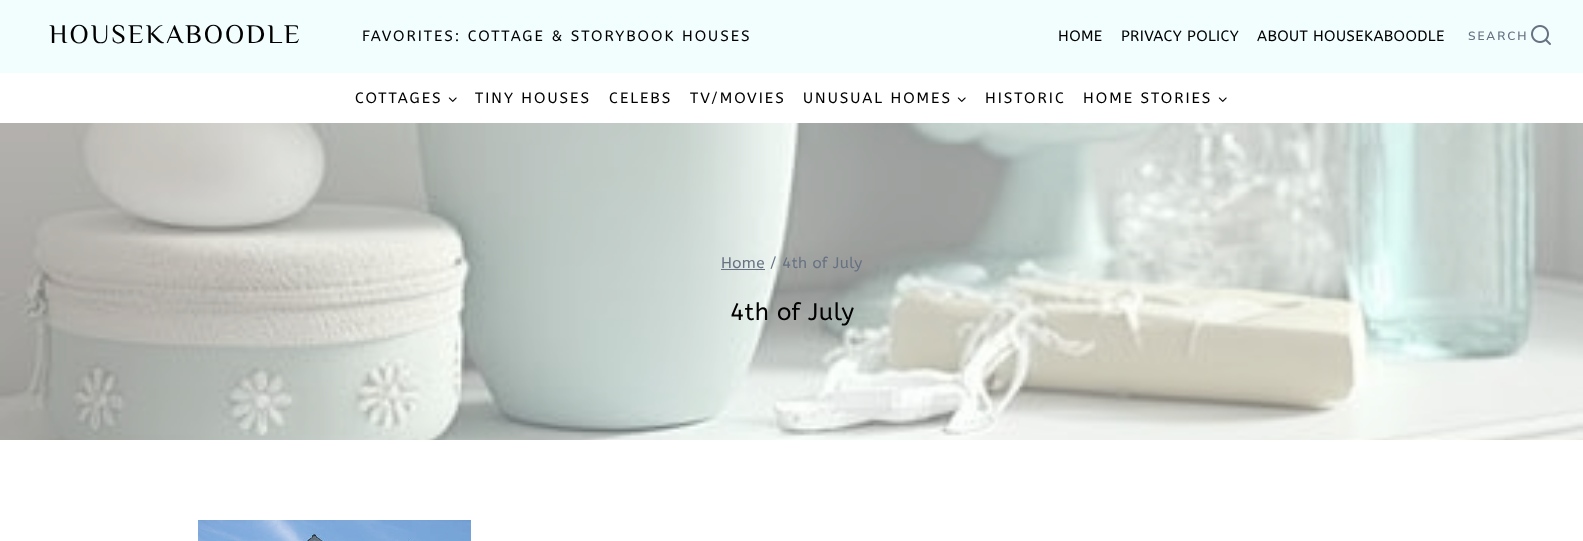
async function draw(canvas) {
	canvas.width = 1583;
	canvas.height = 541;
	const c = canvas.getContext('2d');
	c.miterLimit = 4;
	c.fontKerning = 'normal';
	async function loadImage(src) {
		const img = new Image();
		img.src = src;
		await img.decode();
		return img;
	}

	c.fillStyle = '#fff';
	c.fillRect(0, 0, 1583, 541);
	c.fillStyle = '#f2fefe';
	c.fillRect(0, 0, 1583, 73);
	c.letterSpacing = '2px';
	c.font = '27px El Messiri';
	c.fillStyle = '#000';
	c.fillText('HOUSEKABOODLE', 49, 43);
	c.font = '15px ABeeZee';
	c.fillText('FAVORITES: COTTAGE & STORYBOOK HOUSES', 362, 41);
	c.letterSpacing = '0.4px';
	for (const [text, x, y] of [
		['HOME', 1058, 41],
		['PRIVACY POLICY', 1121, 41],
		['ABOUT HOUSEKABOODLE', 1257, 41],
	]) {
		c.fillText(text, x, y);
	}
	c.letterSpacing = '2px';
	c.font = '200 12px Nunito Sans';
	c.fillStyle = '#667282';
	c.fillText('SEARCH', 1468, 40);
	c.drawImage(await loadImage('img1.png'), 1531, 25, 20, 20);
	c.font = '15px ABeeZee';
	c.fillStyle = '#000';
	c.fillText('COTTAGES', 355, 103);
	c.drawImage(await loadImage('img2.png'), 448, 97, 9, 5);
	for (const [text, x, y] of [
		['TINY HOUSES', 475, 103],
		['CELEBS', 609, 103],
		['TV/MOVIES', 690, 103],
		['UNUSUAL HOMES', 803, 103],
	]) {
		c.fillText(text, x, y);
	}
	c.drawImage(await loadImage('img2.png'), 957, 97, 9, 5);
	c.fillText('HISTORIC', 985, 103);
	c.fillText('HOME STORIES', 1083, 103);
	c.drawImage(await loadImage('img2.png'), 1218, 97, 9, 5);
	c.drawImage(await loadImage('img3.png'), 0, 123, 1583, 317);
	c.fillStyle = '#667282';
	c.fillRect(721, 269, 44, 1);
	c.letterSpacing = '0.4px';
	c.font = '15.25px ABeeZee';
	c.fillText('Home / 4th of July', 721, 268);
	c.font = '24px ABeeZee';
	c.fillStyle = '#000';
	c.fillText('4th of July', 730, 320);
	c.drawImage(await loadImage('img4.png'), 198, 520, 273, 21);
}

draw(document.querySelector('canvas'));
